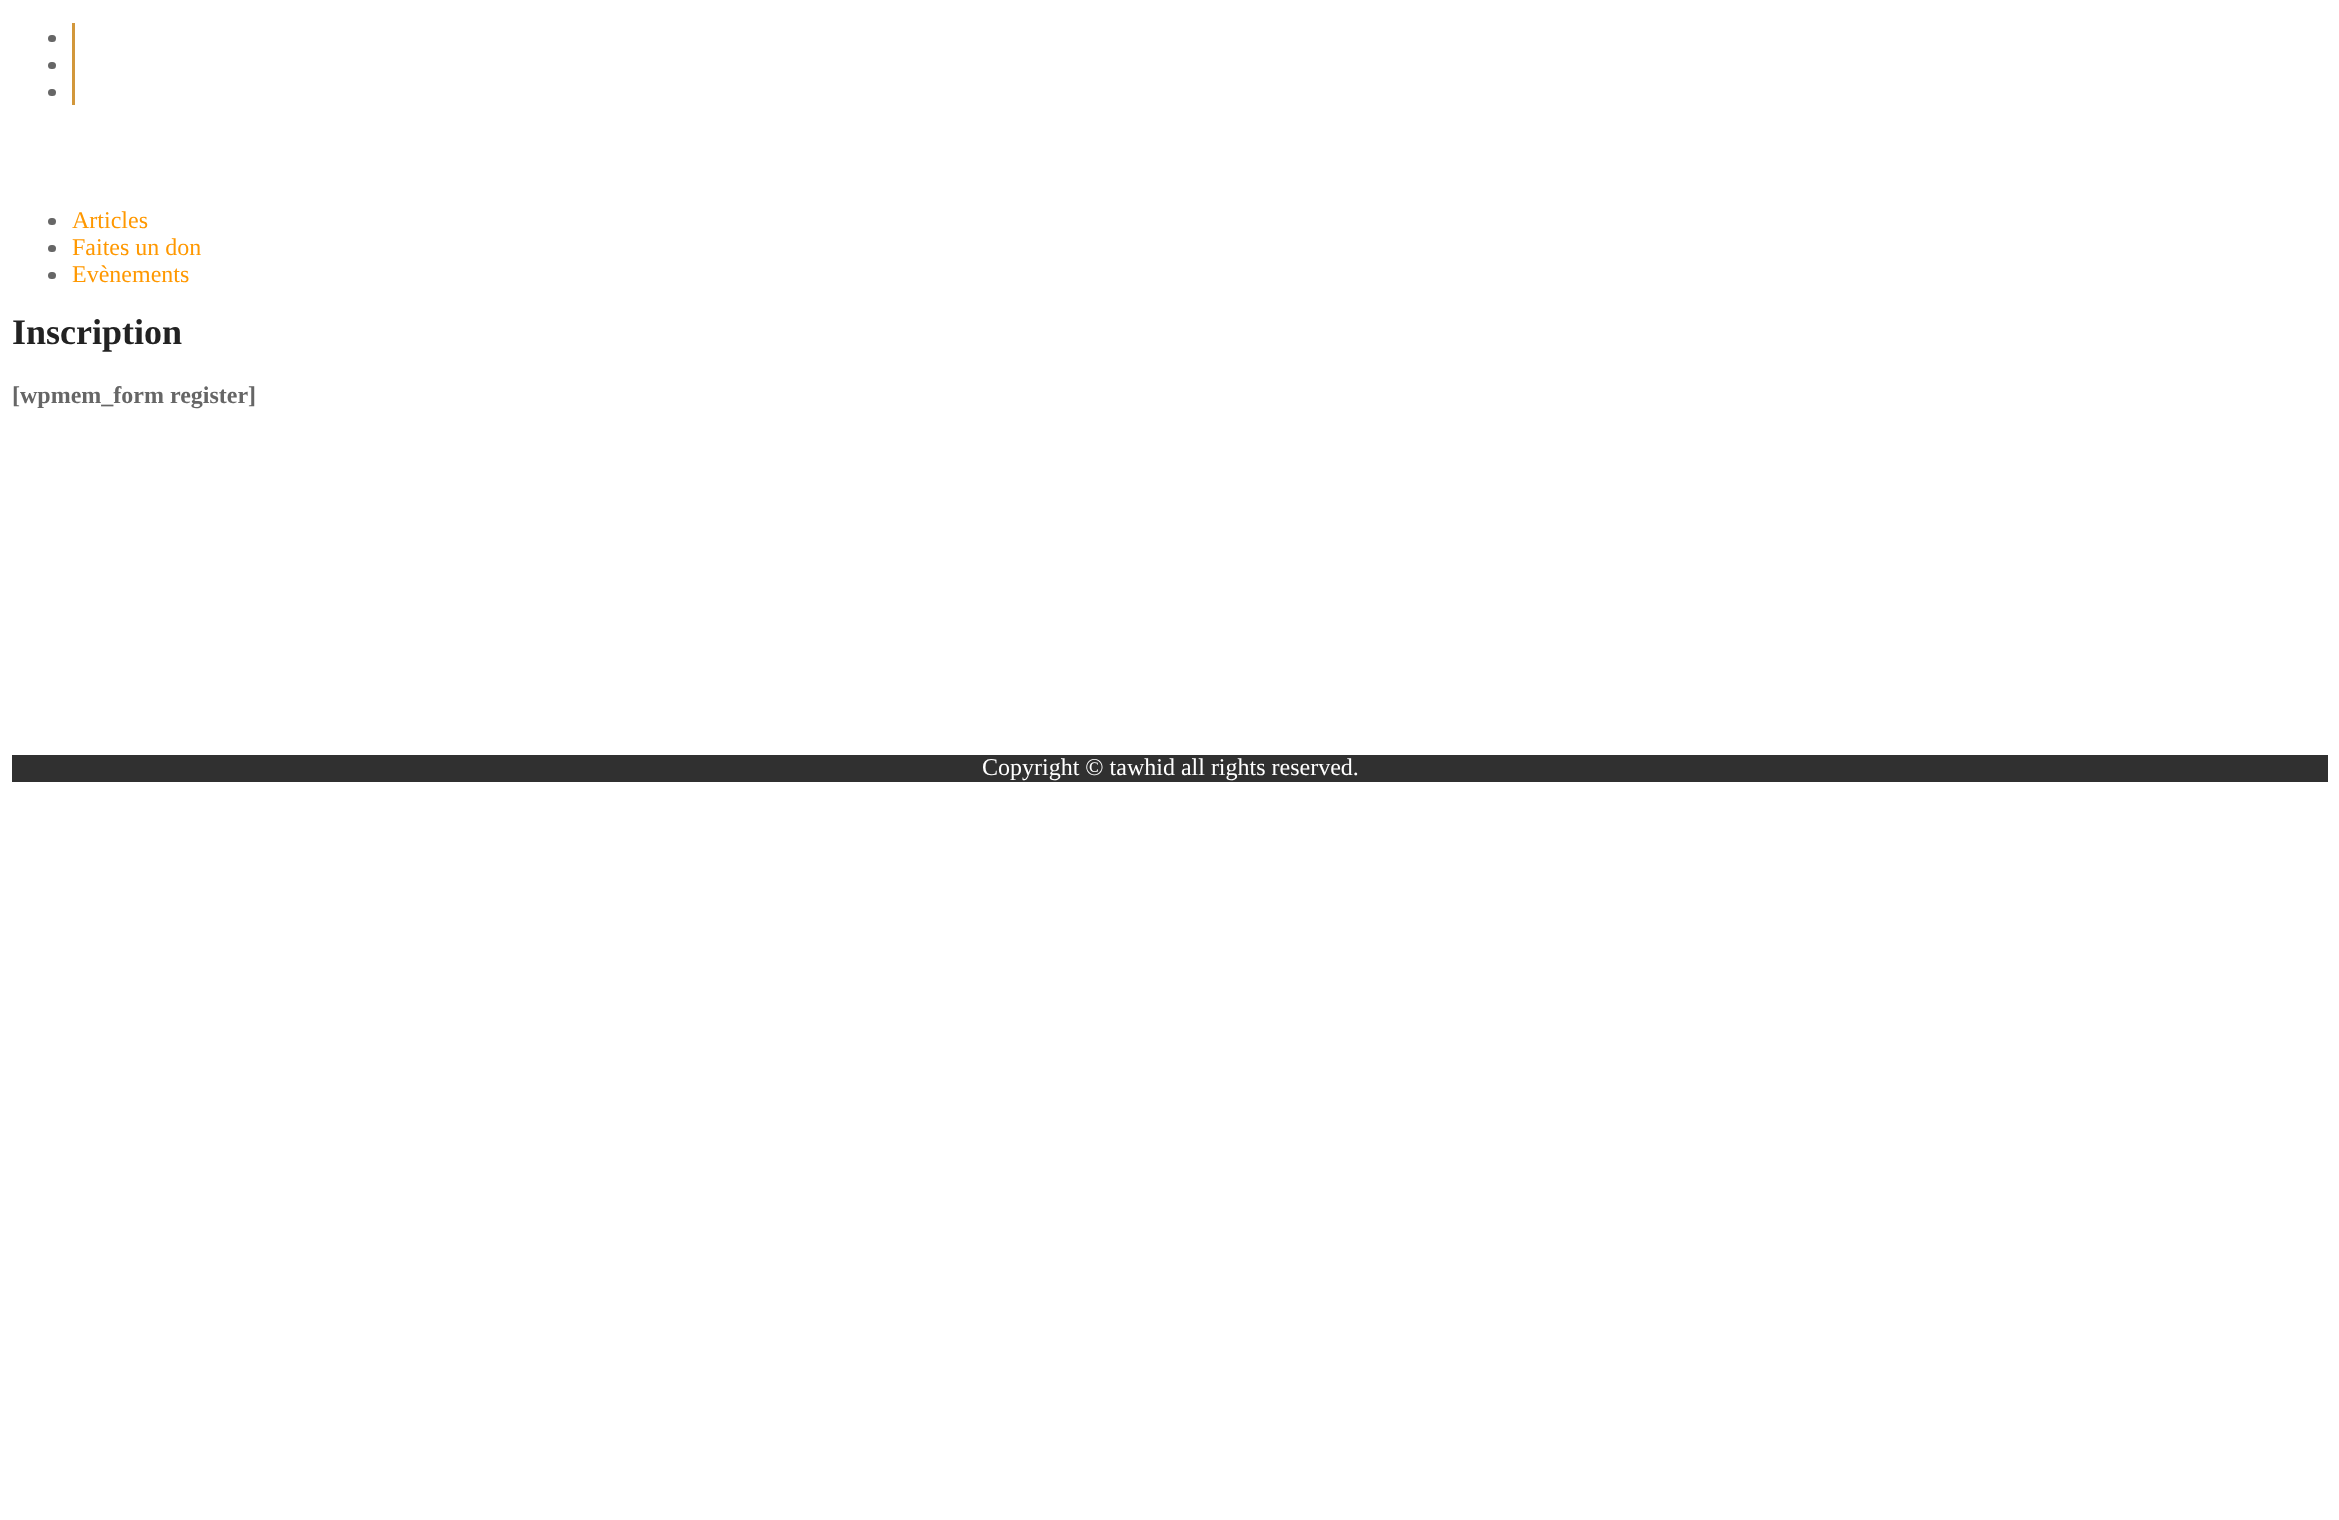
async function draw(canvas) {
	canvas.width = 2339;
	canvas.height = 1520;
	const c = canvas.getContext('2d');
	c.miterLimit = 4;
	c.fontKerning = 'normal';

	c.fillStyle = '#fff';
	c.fillRect(0, 0, 2339, 1520);
	c.fillStyle = '#666';
	c.beginPath();
	c.roundRect(48, 35, 8, 7, 3.5);
	c.fill();
	c.fillStyle = '#d2973b';
	c.fillRect(72, 23, 3, 82);
	c.fillStyle = '#666';
	c.beginPath();
	c.roundRect(48, 62, 8, 7, 3.5);
	c.fill();
	c.beginPath();
	c.roundRect(48, 89, 8, 7, 3.5);
	c.fill();
	c.beginPath();
	c.roundRect(48, 218, 8, 7, 3.5);
	c.fill();
	c.font = '24px Liberation Serif';
	c.fillStyle = '#ff9800';
	c.fillText('Articles', 72, 228);
	c.fillStyle = '#666';
	c.beginPath();
	c.roundRect(48, 245, 8, 7, 3.5);
	c.fill();
	c.fillStyle = '#ff9800';
	c.fillText('Faites un don', 72, 255);
	c.fillStyle = '#666';
	c.beginPath();
	c.roundRect(48, 272, 8, 7, 3.5);
	c.fill();
	c.fillStyle = '#ff9800';
	c.fillText('Evènements', 72, 282);
	c.font = 'bold 36px Liberation Serif';
	c.fillStyle = '#222';
	c.fillText('Inscription', 12, 344);
	c.font = 'bold 24px Liberation Serif';
	c.fillStyle = '#666';
	c.fillText('[wpmem_form register]', 12, 403);
	c.fillStyle = '#303030';
	c.fillRect(12, 755, 2316, 27);
	c.font = '24px Liberation Serif';
	c.fillStyle = '#fff';
	c.fillText('Copyright © tawhid all rights reserved.', 982, 775);
}

draw(document.querySelector('canvas'));
